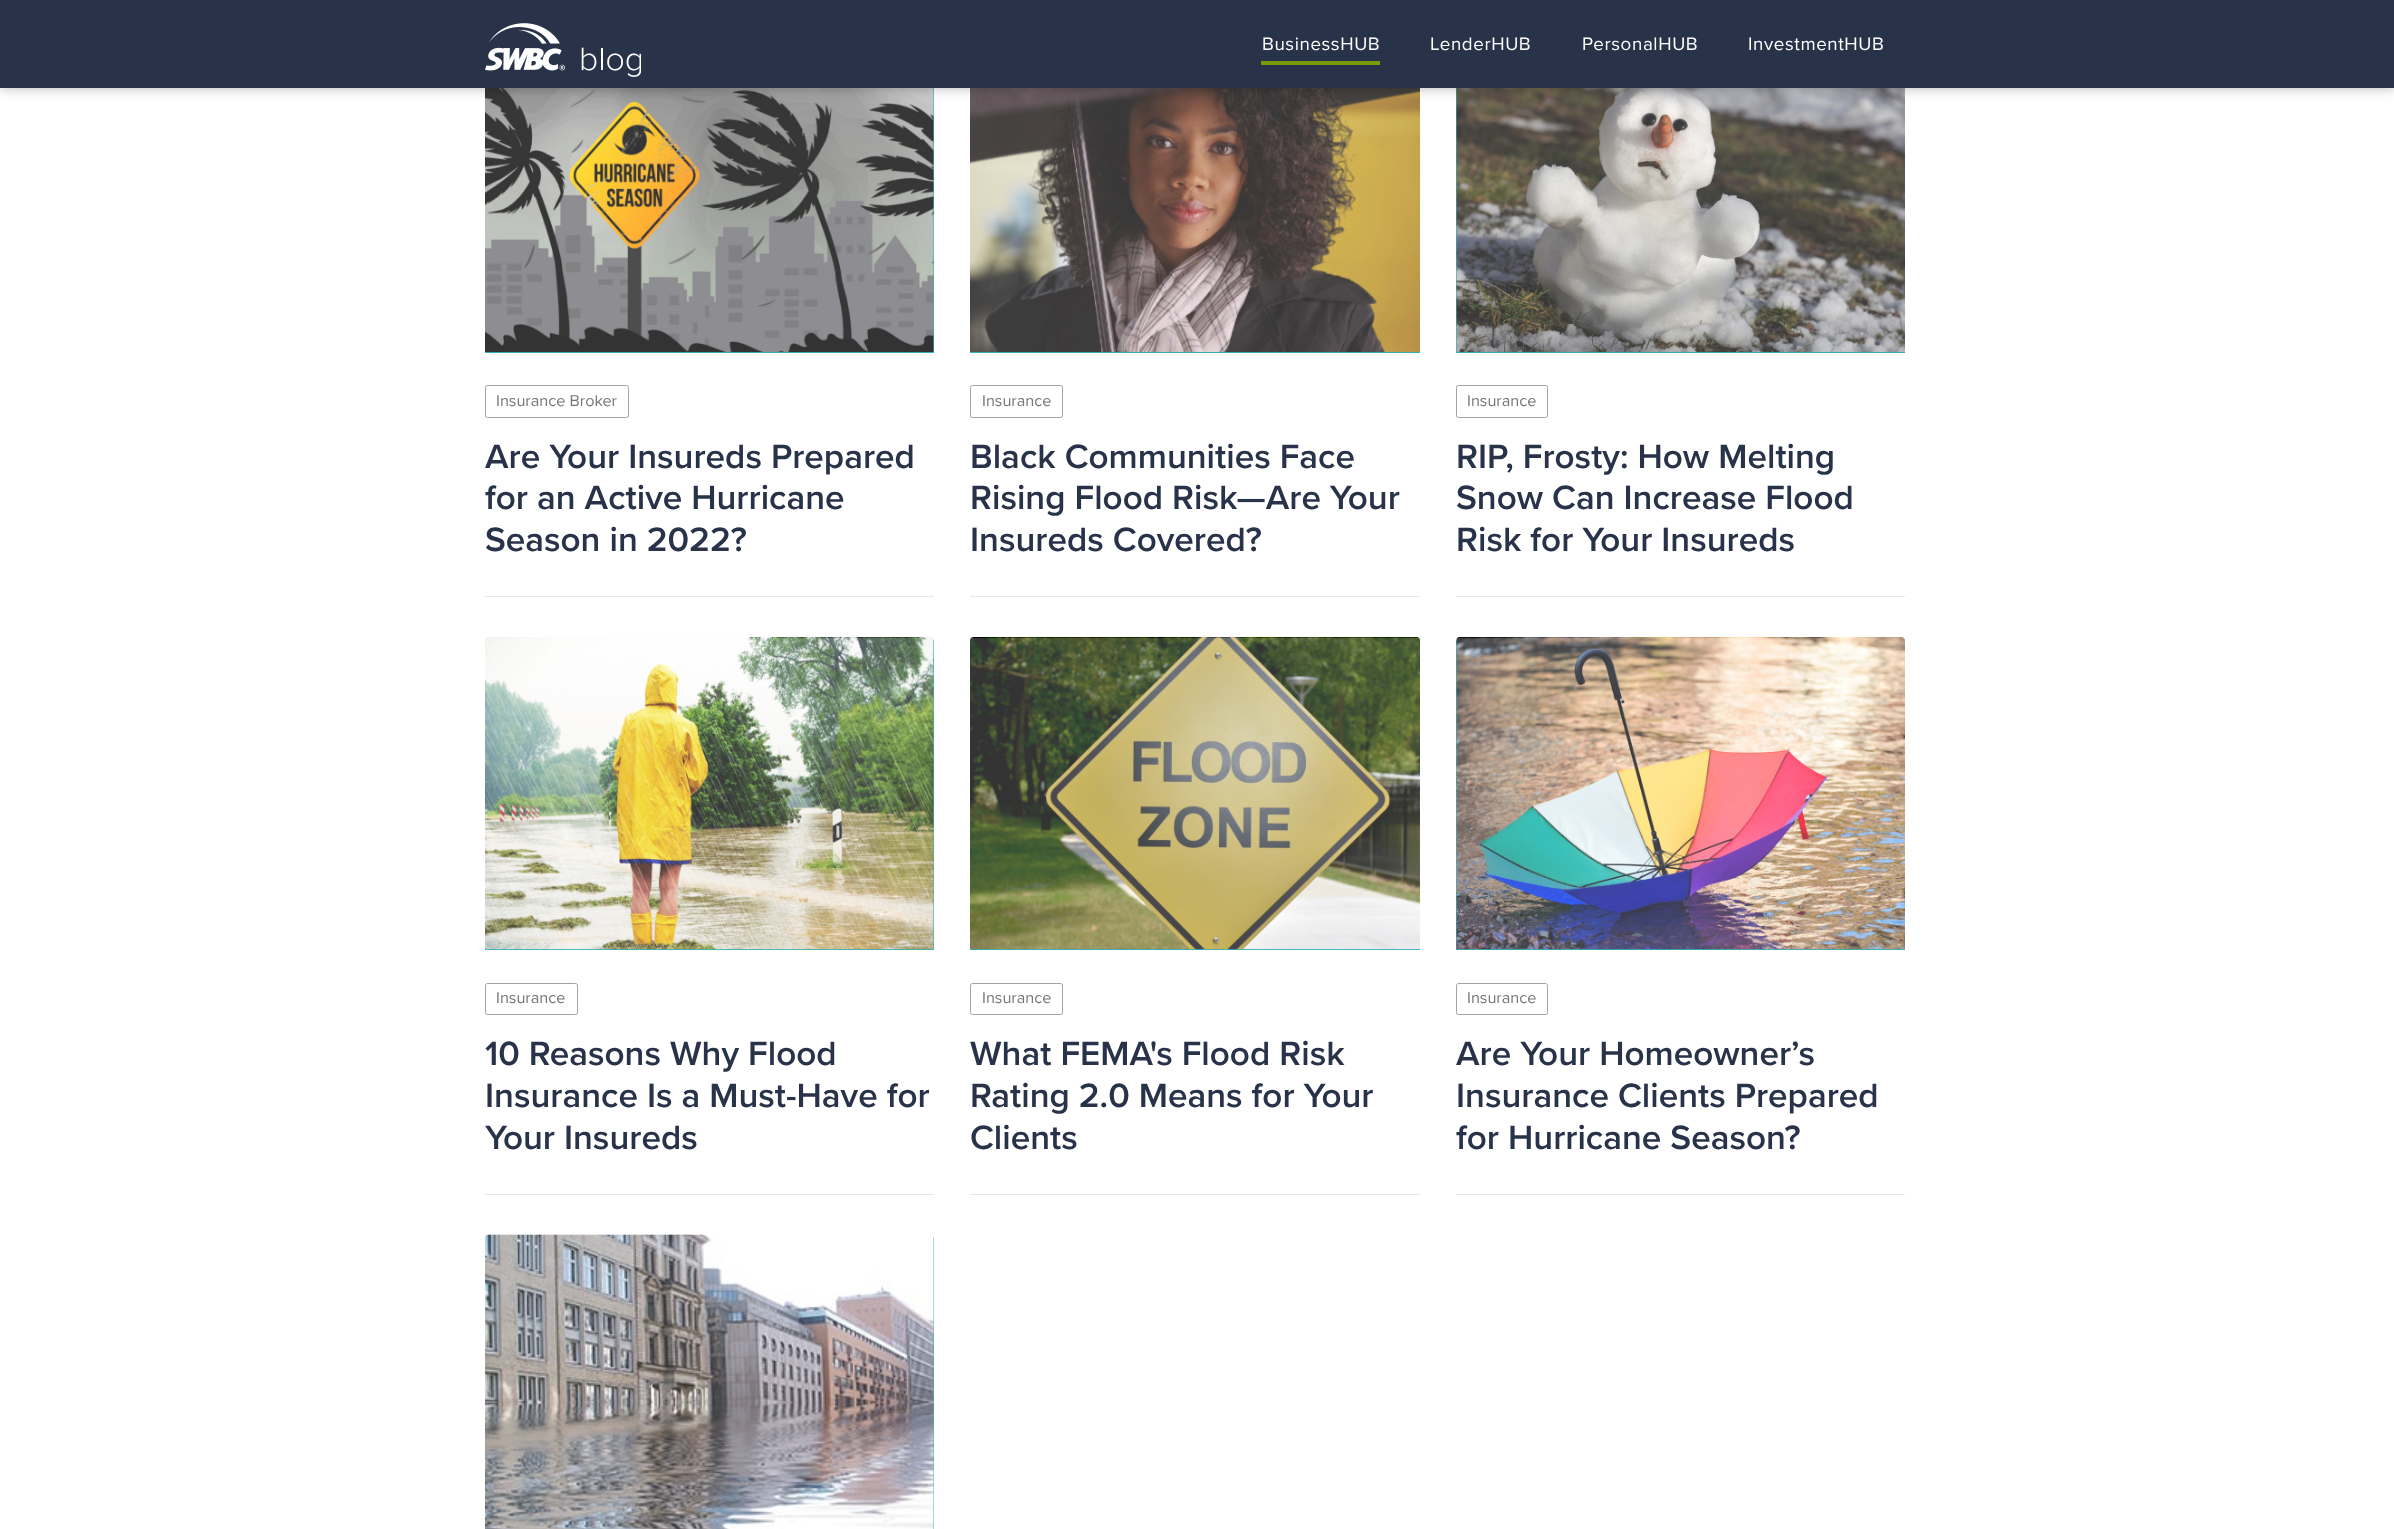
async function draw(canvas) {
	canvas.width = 2394;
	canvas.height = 1529;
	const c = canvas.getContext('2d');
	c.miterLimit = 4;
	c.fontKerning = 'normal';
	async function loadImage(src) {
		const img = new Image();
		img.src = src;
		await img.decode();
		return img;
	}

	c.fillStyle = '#fff';
	c.fillRect(0, 0, 2394, 1529);
	c.fillStyle = '#33b0b8';
	c.fillRect(485, 88, 449, 265);
	c.drawImage(await loadImage('img2.png'), 485, 88, 449, 264);
	c.drawImage(await loadImage('img3.png'), 970, 88, 450, 264);
	c.fillRect(1456, 88, 449, 265);
	c.drawImage(await loadImage('img4.png'), 1456, 88, 449, 264);
	c.fillStyle = '#00000040';
	c.filter = 'blur(6px)';
	c.beginPath();
	c.rect(0, 1, 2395, 88);
	c.fill();
	c.filter = 'none';
	c.fillStyle = '#28334a';
	c.fillRect(0, 0, 2394, 88);
	c.drawImage(await loadImage('img1.png'), 485, 23, 156, 54);
	c.letterSpacing = '0.6px';
	c.font = '18.75px Proxima Nova';
	c.fillStyle = '#fff';
	c.fillText('BusinessHUB', 1262, 50);
	c.fillStyle = '#7a9a01';
	c.fillRect(1261, 61, 119, 4);
	c.fillStyle = '#fff';
	for (const [text, x, y] of [
		['LenderHUB', 1430, 50],
		['PersonalHUB', 1582, 50],
		['InvestmentHUB', 1748, 50],
	]) {
		c.fillText(text, x, y);
	}
	c.fillStyle = '#e9e6e3';
	c.fillRect(485, 596, 449, 1);
	c.beginPath();
	c.roundRect(485.5, 385.5, 143, 32, 2);
	c.strokeStyle = '#a3a3a3';
	c.stroke();
	c.letterSpacing = '0px';
	c.font = '16.25px Proxima Nova';
	c.fillStyle = '#767676';
	c.fillText('Insurance Broker', 496, 406);
	c.font = '600 35px Proxima Nova';
	c.fillStyle = '#28334a';
	for (const [text, x, y] of [
		['Are Your Insureds Prepared', 485, 468],
		['for an Active Hurricane', 485, 509],
		['Season in 2022?', 485, 551],
	]) {
		c.fillText(text, x, y);
	}
	c.fillStyle = '#e9e6e3';
	c.fillRect(970, 596, 450, 1);
	c.fillStyle = '#33b0b8';
	c.fillRect(970, 352, 450, 1);
	c.beginPath();
	c.roundRect(970.5, 385.5, 92, 32, 2);
	c.stroke();
	c.font = '16.25px Proxima Nova';
	c.fillStyle = '#767676';
	c.fillText('Insurance', 982, 406);
	c.font = '600 35px Proxima Nova';
	c.fillStyle = '#28334a';
	for (const [text, x, y] of [
		['Black Communities Face', 970, 468],
		['Rising Flood Risk—Are Your', 970, 509],
		['Insureds Covered?', 970, 551],
	]) {
		c.fillText(text, x, y);
	}
	c.fillStyle = '#e9e6e3';
	c.fillRect(1456, 596, 449, 1);
	c.beginPath();
	c.roundRect(1456.5, 385.5, 91, 32, 2);
	c.stroke();
	c.font = '16.25px Proxima Nova';
	c.fillStyle = '#767676';
	c.fillText('Insurance', 1467, 406);
	c.font = '600 35px Proxima Nova';
	c.fillStyle = '#28334a';
	for (const [text, x, y] of [
		['RIP, Frosty: How Melting', 1456, 468],
		['Snow Can Increase Flood', 1456, 509],
		['Risk for Your Insureds', 1456, 551],
	]) {
		c.fillText(text, x, y);
	}
	c.fillStyle = '#e9e6e3';
	c.fillRect(485, 1194, 449, 1);
	c.fillStyle = '#33b0b8';
	c.beginPath();
	c.roundRect(485, 638, 449, 312, [4, 4, 0, 0]);
	c.fill();
	c.drawImage(await loadImage('img5.png'), 485, 637, 449, 313);
	c.beginPath();
	c.roundRect(485.5, 983.5, 92, 31, 2);
	c.stroke();
	c.font = '16.25px Proxima Nova';
	c.fillStyle = '#767676';
	c.fillText('Insurance', 496, 1003);
	c.font = '600 35px Proxima Nova';
	c.fillStyle = '#28334a';
	for (const [text, x, y] of [
		['10 Reasons Why Flood', 485, 1065],
		['Insurance Is a Must-Have for', 485, 1107],
		['Your Insureds', 485, 1149],
	]) {
		c.fillText(text, x, y);
	}
	c.fillStyle = '#e9e6e3';
	c.fillRect(970, 1194, 450, 1);
	c.fillStyle = '#33b0b8';
	c.beginPath();
	c.roundRect(970, 638, 450, 312, [4, 4, 0, 0]);
	c.fill();
	c.drawImage(await loadImage('img6.png'), 970, 637, 450, 313);
	c.beginPath();
	c.roundRect(970.5, 983.5, 92, 31, 2);
	c.stroke();
	c.font = '16.25px Proxima Nova';
	c.fillStyle = '#767676';
	c.fillText('Insurance', 982, 1003);
	c.font = '600 35px Proxima Nova';
	c.fillStyle = '#28334a';
	for (const [text, x, y] of [
		['What FEMA\'s Flood Risk', 970, 1065],
		['Rating 2.0 Means for Your', 970, 1107],
		['Clients', 970, 1149],
	]) {
		c.fillText(text, x, y);
	}
	c.fillStyle = '#e9e6e3';
	c.fillRect(1456, 1194, 449, 1);
	c.fillStyle = '#33b0b8';
	c.beginPath();
	c.roundRect(1456, 638, 449, 312, [4, 4, 0, 0]);
	c.fill();
	c.drawImage(await loadImage('img7.png'), 1456, 637, 449, 313);
	c.beginPath();
	c.roundRect(1456.5, 983.5, 91, 31, 2);
	c.stroke();
	c.font = '16.25px Proxima Nova';
	c.fillStyle = '#767676';
	c.fillText('Insurance', 1467, 1003);
	c.font = '600 35px Proxima Nova';
	c.fillStyle = '#28334a';
	for (const [text, x, y] of [
		['Are Your Homeowner’s', 1456, 1065],
		['Insurance Clients Prepared', 1456, 1107],
		['for Hurricane Season?', 1456, 1149],
	]) {
		c.fillText(text, x, y);
	}
	c.fillStyle = '#33b0b8';
	c.beginPath();
	c.moveTo(489, 1235);
	c.lineTo(930, 1235);
	c.bezierCurveTo(932, 1235, 934, 1237, 934, 1239);
	c.lineTo(934, 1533);
	c.lineTo(485, 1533);
	c.lineTo(485, 1239);
	c.bezierCurveTo(485, 1237, 487, 1235, 489, 1235);
	c.closePath();
	c.fill();
	c.drawImage(await loadImage('img8.png'), 485, 1234, 449, 295);
}

draw(document.querySelector('canvas'));
